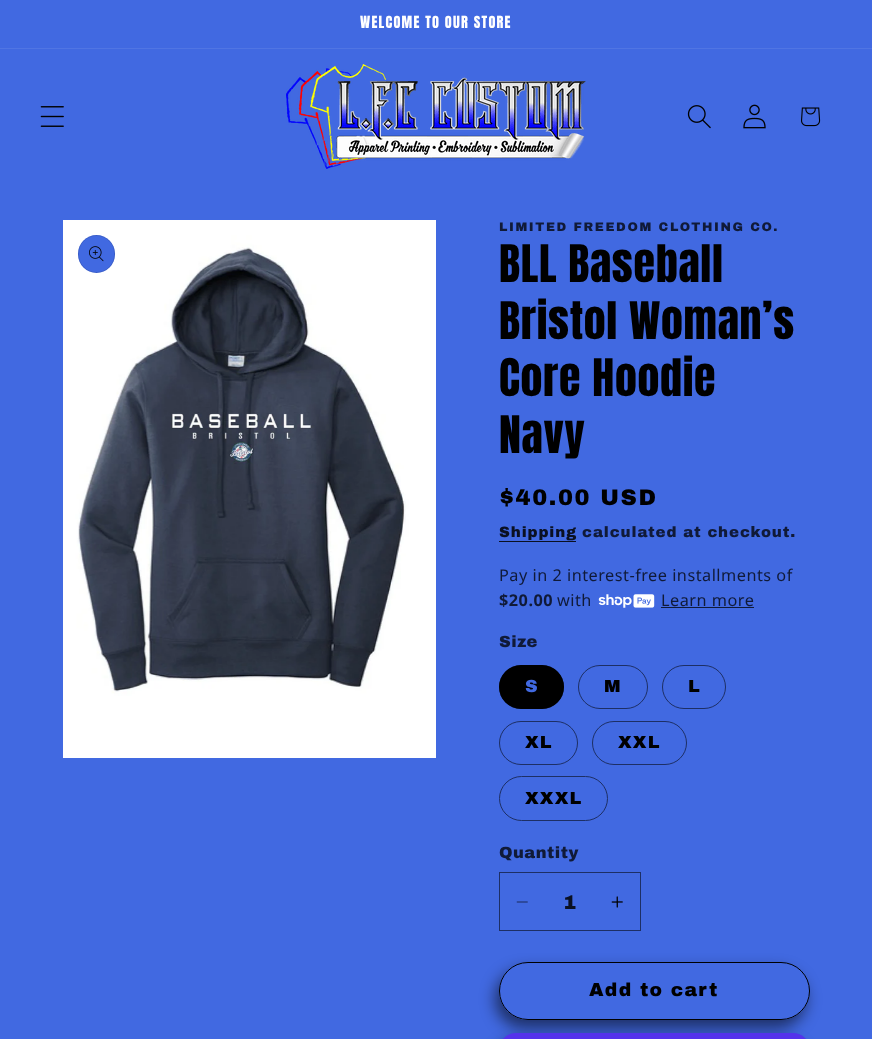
async function draw(canvas) {
	canvas.width = 872;
	canvas.height = 1039;
	const c = canvas.getContext('2d');
	c.miterLimit = 4;
	c.fontKerning = 'normal';
	async function loadImage(src) {
		const img = new Image();
		img.src = src;
		await img.decode();
		return img;
	}

	c.fillStyle = '#4169e1';
	c.fillRect(0, 0, 872, 1039);
	c.fillStyle = '#5075e3';
	c.fillRect(0, 48, 872, 1);
	c.letterSpacing = '1.25px';
	c.font = '14.25px Anton';
	c.fillStyle = '#fff';
	c.fillText('WELCOME TO OUR STORE', 360, 28);
	c.drawImage(await loadImage('img1.png'), 40, 106, 24, 21);
	c.drawImage(await loadImage('img2.png'), 286, 64, 300, 105);
	c.drawImage(await loadImage('img3.png'), 687, 105, 24, 24);
	c.drawImage(await loadImage('img4.png'), 743, 104, 23, 25);
	c.drawImage(await loadImage('img5.png'), 801, 107, 20, 20);
	c.drawImage(await loadImage('img6.png'), 63, 220, 373, 538);
	c.fillStyle = '#4169e1';
	c.beginPath();
	c.roundRect(78, 235, 37, 38, 18.5);
	c.fill();
	c.beginPath();
	c.roundRect(78.5, 235.5, 36, 37, 18);
	c.strokeStyle = '#0000001a';
	c.stroke();
	c.drawImage(await loadImage('img7.png'), 89, 246, 15, 16);
	c.letterSpacing = '1.6px';
	c.font = '12.5px Archivo Black';
	c.fillStyle = '#101a38';
	c.fillText('LIMITED FREEDOM CLOTHING CO.', 499, 231);
	c.letterSpacing = '0.7px';
	c.font = '44px Anton';
	c.fillStyle = '#000';
	for (const [text, x, y] of [
		['BLL Baseball', 499, 282],
		['Bristol Woman’s', 499, 339],
		['Core Hoodie', 499, 396],
		['Navy', 499, 453],
	]) {
		c.fillText(text, x, y);
	}
	c.letterSpacing = '1.6px';
	c.font = '22.5px Archivo Black';
	c.fillText('$40.00 USD', 499, 505);
	c.letterSpacing = '0.9px';
	c.font = '15px Archivo Black';
	c.fillStyle = '#0a1022';
	c.fillText('Shipping', 499, 537);
	c.fillRect(499, 541, 77, 1);
	c.fillStyle = '#101a38';
	c.fillText('calculated at checkout.', 582, 537);
	c.letterSpacing = '0.5px';
	c.font = '16.25px Noto Sans';
	c.fillText('Pay in 2 interest-free installments of', 499, 581);
	c.font = 'bold 16.25px Noto Sans';
	c.fillText('$20.00', 499, 606);
	c.font = '16.25px Noto Sans';
	c.fillText('with', 557, 606);
	c.drawImage(await loadImage('img8.png'), 598, 594, 57, 14);
	c.fillText('Learn more', 661, 606);
	c.fillRect(661, 607, 93, 1);
	c.font = '16.25px Archivo Black';
	c.fillText('Size', 499, 647);
	c.fillStyle = '#000';
	c.beginPath();
	c.roundRect(499, 665, 65, 44, 22);
	c.fill();
	c.beginPath();
	c.roundRect(499.5, 665.5, 64, 43, 21.5);
	c.strokeStyle = '#0000008c';
	c.stroke();
	c.letterSpacing = '1.25px';
	c.font = '17.5px Archivo Black';
	c.fillStyle = '#4169e1';
	c.fillText('S', 525, 692);
	c.beginPath();
	c.roundRect(578.5, 665.5, 69, 43, 21.5);
	c.strokeStyle = '#1d2f65';
	c.stroke();
	c.fillStyle = '#000';
	c.fillText('M', 604, 692);
	c.beginPath();
	c.roundRect(662.5, 665.5, 63, 43, 21.5);
	c.stroke();
	c.fillText('L', 688, 692);
	c.beginPath();
	c.roundRect(499.5, 721.5, 78, 43, 21.5);
	c.stroke();
	c.fillText('XL', 525, 748);
	c.beginPath();
	c.roundRect(592.5, 721.5, 94, 43, 21.5);
	c.stroke();
	c.fillText('XXL', 618, 748);
	c.beginPath();
	c.roundRect(499.5, 776.5, 108, 44, 22);
	c.stroke();
	c.fillText('XXXL', 525, 804);
	c.letterSpacing = '0.5px';
	c.font = '16.25px Archivo Black';
	c.fillStyle = '#101a38';
	c.fillText('Quantity', 499, 858);
	c.drawImage(await loadImage('img9.png'), 516, 901, 12, 2);
	c.drawImage(await loadImage('img10.png'), 611, 896, 12, 12);
	c.strokeRect(499.5, 872.5, 141, 58);
	c.letterSpacing = '0px';
	c.font = '20px Archivo Black';
	c.fillStyle = '#0a1022';
	c.fillText('1', 563, 909);
	c.fillStyle = '#0000008c';
	c.filter = 'blur(7.5px)';
	c.beginPath();
	c.roundRect(495, 970, 311, 58, 29);
	c.fill();
	c.filter = 'none';
	c.filter = 'blur(7.5px)';
	c.beginPath();
	c.roundRect(495, 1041, 311, 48, 27.5);
	c.fill();
	c.filter = 'none';
	c.fillStyle = '#4169e1';
	c.beginPath();
	c.roundRect(499, 962, 311, 58, 29);
	c.fill();
	c.beginPath();
	c.roundRect(499.5, 962.5, 310, 57, 28.5);
	c.strokeStyle = '#4169e1';
	c.stroke();
	c.beginPath();
	c.roundRect(499.5, 962.5, 310, 57, 28.5);
	c.strokeStyle = '#000';
	c.stroke();
	c.letterSpacing = '1.25px';
	c.font = '18.75px Archivo Black';
	c.fillStyle = '#000';
	c.fillText('Add to cart', 589, 996);
	c.fillStyle = '#5433eb';
	c.beginPath();
	c.roundRect(499, 1033, 311, 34, 27.5);
	c.fill();
}

draw(document.querySelector('canvas'));
